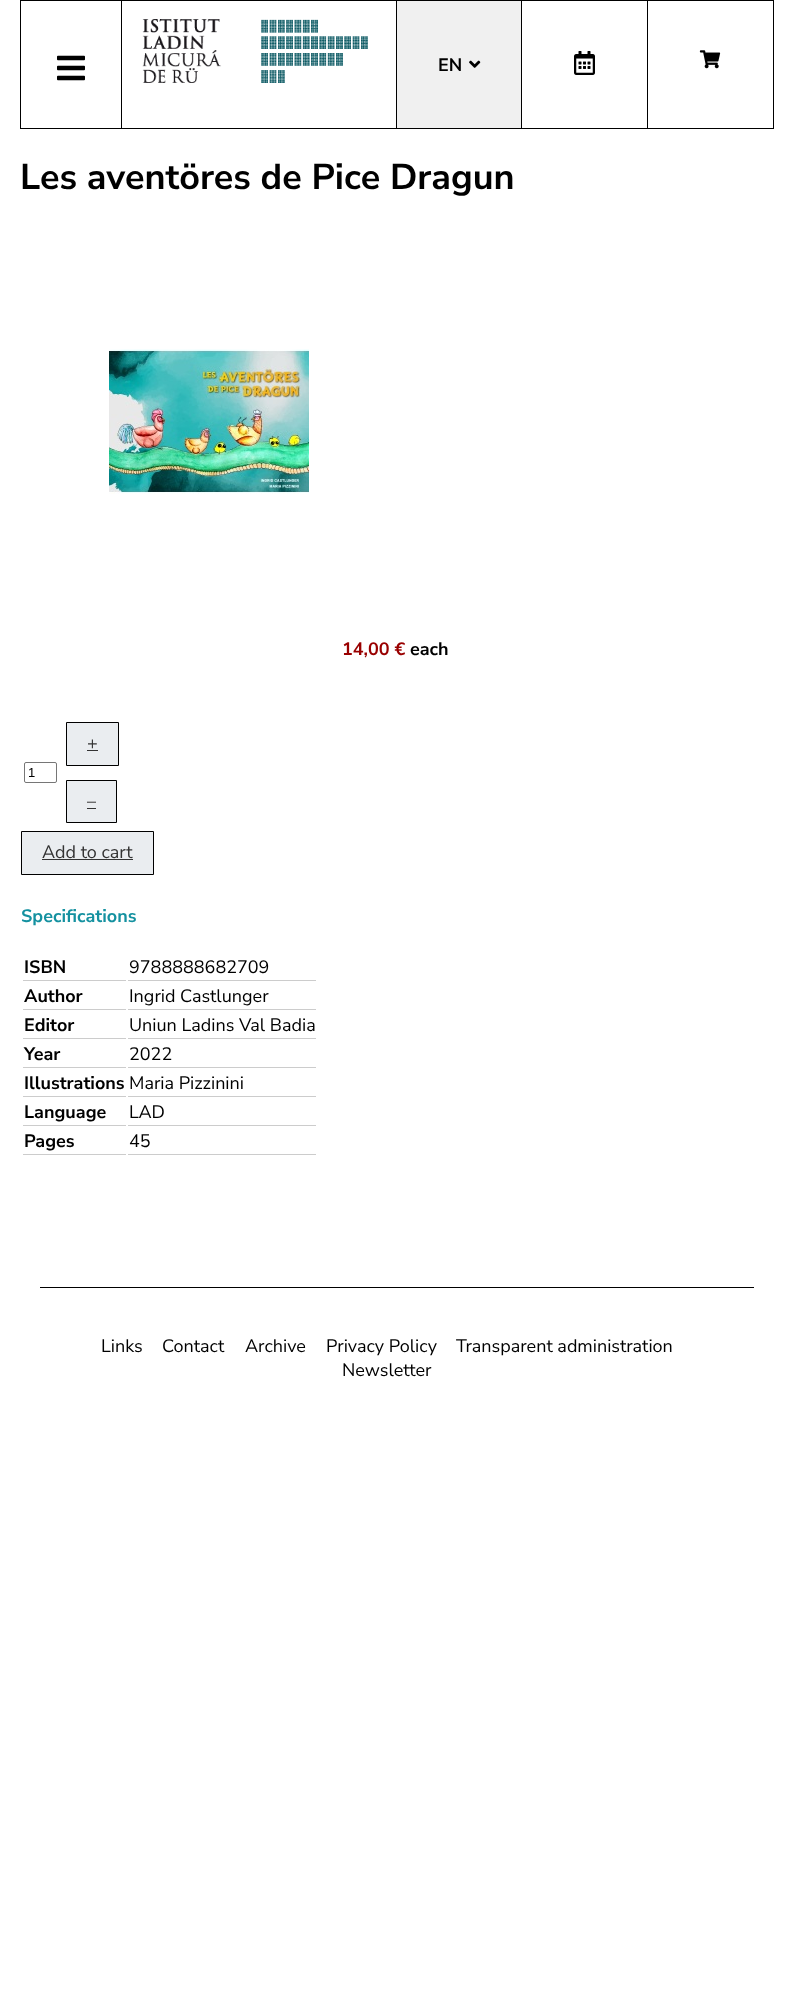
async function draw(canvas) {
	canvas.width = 794;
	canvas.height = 1991;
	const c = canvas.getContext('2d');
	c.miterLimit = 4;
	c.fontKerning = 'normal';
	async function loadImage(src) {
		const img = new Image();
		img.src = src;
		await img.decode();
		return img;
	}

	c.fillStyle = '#fff';
	c.fillRect(0, 0, 794, 1991);
	c.strokeStyle = '#000';
	c.strokeRect(20.5, 0.5, 753, 128);
	c.fillStyle = '#000';
	c.fillRect(396, 1, 1, 127);
	c.fillRect(121, 1, 1, 127);
	c.drawImage(await loadImage('img1.png'), 57, 55, 28, 26);
	c.drawImage(await loadImage('img2.png'), 142, 19, 226, 64);
	c.fillRect(521, 1, 1, 127);
	c.fillStyle = '#f0f0f0';
	c.fillRect(397, 1, 124, 127);
	c.font = 'bold 18px Nunito Sans';
	c.fillStyle = '#000';
	c.fillText('EN', 438, 71);
	c.drawImage(await loadImage('img3.png'), 469, 60, 12, 8);
	c.fillRect(647, 1, 1, 127);
	c.drawImage(await loadImage('img4.png'), 574, 51, 21, 24);
	c.drawImage(await loadImage('img5.png'), 699, 50, 22, 19);
	c.font = 'bold 36px Nunito Sans';
	c.fillText('Les aventöres de Pice Dragun', 20, 189);
	c.drawImage(await loadImage('img6.png'), 109, 349, 200, 145);
	c.font = 'bold 18px Nunito Sans';
	c.fillStyle = '#900';
	c.fillText('14,00 €', 342, 655);
	c.fillStyle = '#000';
	c.fillText('each', 410, 655);
	c.fillStyle = '#eaedf0';
	c.beginPath();
	c.rect(66.5, 722.5, 52, 43);
	c.fill();
	c.stroke();
	c.font = '18px Nunito Sans';
	c.fillStyle = '#333';
	c.fillText('+', 87, 749);
	c.fillRect(87, 750, 11, 1);
	c.beginPath();
	c.roundRect(24.5, 762.5, 32, 20, 1.5);
	c.strokeStyle = '#767676';
	c.stroke();
	c.font = '13px Liberation Sans';
	c.fillStyle = '#000';
	c.fillText('1', 28, 777);
	c.fillStyle = '#eaedf0';
	c.beginPath();
	c.rect(66.5, 780.5, 50, 42);
	c.fill();
	c.strokeStyle = '#000';
	c.stroke();
	c.font = '18px Nunito Sans';
	c.fillStyle = '#333';
	c.fillText('–', 87, 807);
	c.fillRect(87, 808, 9, 1);
	c.fillStyle = '#eaedf0';
	c.beginPath();
	c.rect(21.5, 831.5, 132, 43);
	c.fill();
	c.stroke();
	c.fillStyle = '#333';
	c.fillText('Add to cart', 42, 858);
	c.fillRect(42, 859, 91, 1);
	c.font = 'bold 18px Nunito Sans';
	c.fillStyle = '#1491a0';
	c.fillText('Specifications', 21, 922);
	c.fillStyle = '#ccc';
	c.fillRect(23, 980, 103, 1);
	c.fillStyle = '#000';
	c.fillText('ISBN', 24, 973);
	c.fillStyle = '#ccc';
	c.fillRect(128, 980, 188, 1);
	c.font = '18px Nunito Sans';
	c.fillStyle = '#000';
	c.fillText('9788888682709', 129, 973);
	c.fillStyle = '#ccc';
	c.fillRect(23, 1009, 103, 1);
	c.font = 'bold 18px Nunito Sans';
	c.fillStyle = '#000';
	c.fillText('Author', 24, 1002);
	c.fillStyle = '#ccc';
	c.fillRect(128, 1009, 188, 1);
	c.font = '18px Nunito Sans';
	c.fillStyle = '#000';
	c.fillText('Ingrid Castlunger', 129, 1002);
	c.fillStyle = '#ccc';
	c.fillRect(23, 1038, 103, 1);
	c.font = 'bold 18px Nunito Sans';
	c.fillStyle = '#000';
	c.fillText('Editor', 24, 1031);
	c.fillStyle = '#ccc';
	c.fillRect(128, 1038, 188, 1);
	c.font = '18px Nunito Sans';
	c.fillStyle = '#000';
	c.fillText('Uniun Ladins Val Badia', 129, 1031);
	c.fillStyle = '#ccc';
	c.fillRect(23, 1067, 103, 1);
	c.font = 'bold 18px Nunito Sans';
	c.fillStyle = '#000';
	c.fillText('Year', 24, 1060);
	c.fillStyle = '#ccc';
	c.fillRect(128, 1067, 188, 1);
	c.font = '18px Nunito Sans';
	c.fillStyle = '#000';
	c.fillText('2022', 129, 1060);
	c.fillStyle = '#ccc';
	c.fillRect(23, 1096, 103, 1);
	c.font = 'bold 18px Nunito Sans';
	c.fillStyle = '#000';
	c.fillText('Illustrations', 24, 1089);
	c.fillStyle = '#ccc';
	c.fillRect(128, 1096, 188, 1);
	c.font = '18px Nunito Sans';
	c.fillStyle = '#000';
	c.fillText('Maria Pizzinini', 129, 1089);
	c.fillStyle = '#ccc';
	c.fillRect(23, 1125, 103, 1);
	c.font = 'bold 18px Nunito Sans';
	c.fillStyle = '#000';
	c.fillText('Language', 24, 1118);
	c.fillStyle = '#ccc';
	c.fillRect(128, 1125, 188, 1);
	c.font = '18px Nunito Sans';
	c.fillStyle = '#000';
	c.fillText('LAD', 129, 1118);
	c.fillStyle = '#ccc';
	c.fillRect(23, 1154, 103, 1);
	c.font = 'bold 18px Nunito Sans';
	c.fillStyle = '#000';
	c.fillText('Pages', 24, 1147);
	c.fillStyle = '#ccc';
	c.fillRect(128, 1154, 188, 1);
	c.font = '18px Nunito Sans';
	c.fillStyle = '#000';
	c.fillText('45', 129, 1147);
	c.fillRect(40, 1287, 714, 1);
	for (const [text, x, y] of [
		['Links', 101, 1352],
		['Contact', 162, 1352],
		['Archive', 245, 1352],
		['Privacy Policy', 326, 1352],
		['Transparent administration', 456, 1352],
		['Newsletter', 342, 1376],
	]) {
		c.fillText(text, x, y);
	}
}

draw(document.querySelector('canvas'));
